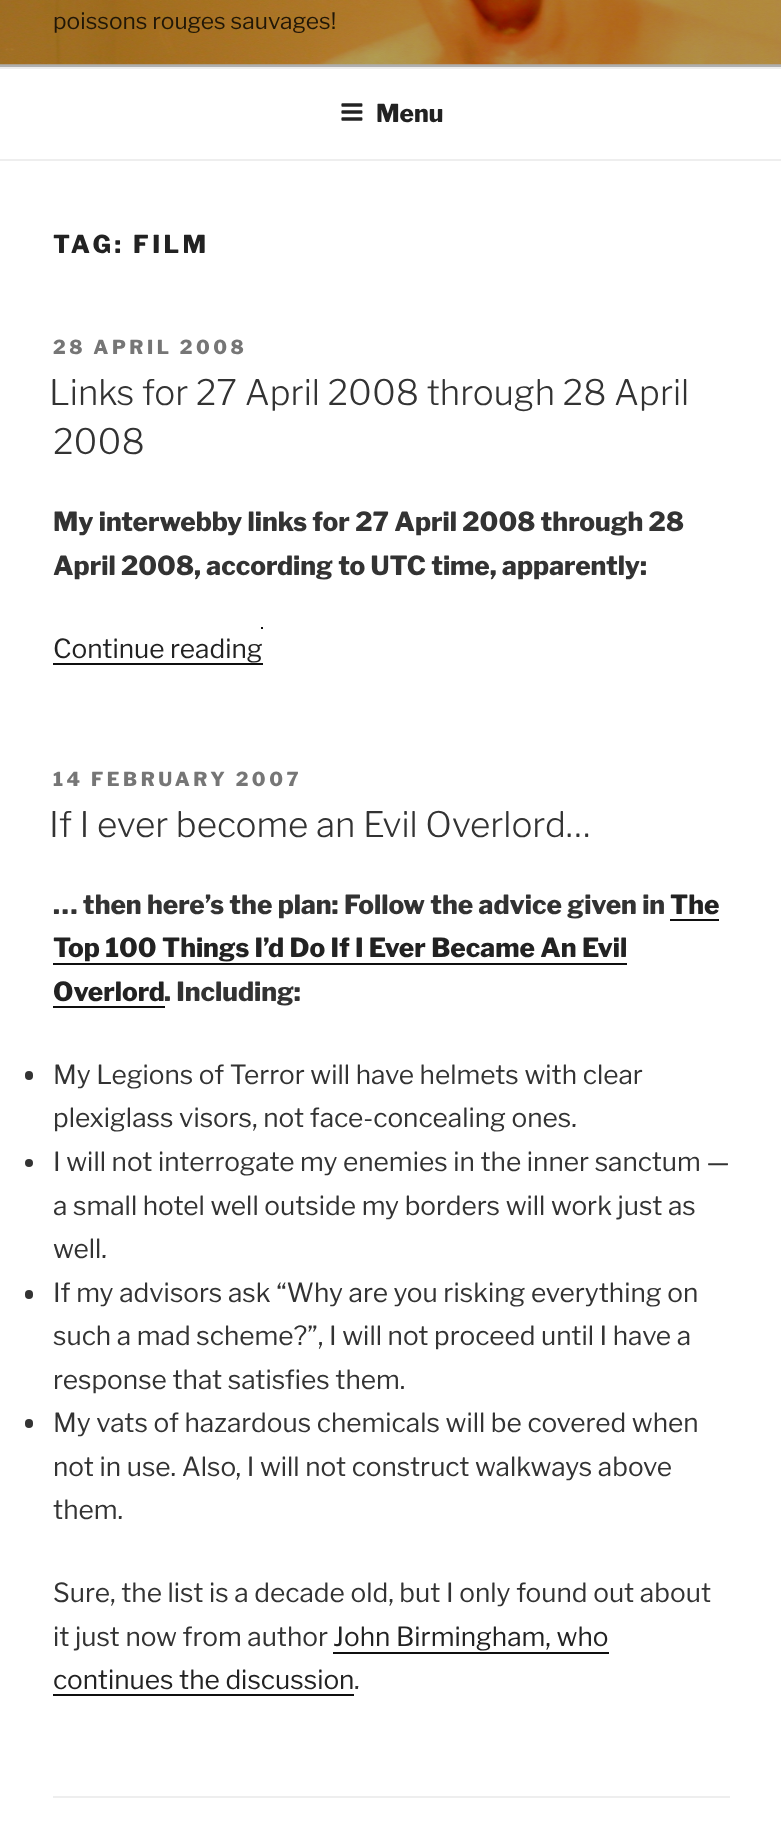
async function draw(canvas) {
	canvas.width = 781;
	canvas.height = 1839;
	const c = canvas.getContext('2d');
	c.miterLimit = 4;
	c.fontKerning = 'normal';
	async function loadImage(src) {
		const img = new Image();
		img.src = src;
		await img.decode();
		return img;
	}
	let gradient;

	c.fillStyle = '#fff';
	c.fillRect(0, 0, 781, 1839);
	c.fillStyle = '#fafafa';
	c.fillRect(0, 64, 781, 3);
	c.drawImage(await loadImage('img1.png'), 0, 0, 781, 65);
	gradient = c.createLinearGradient(391, -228, 391, 67);
	gradient.addColorStop(0, '#00000000');
	gradient.addColorStop(0.75, '#0000004d');
	gradient.addColorStop(1, '#0000004d');
	c.fillStyle = gradient;
	c.fillRect(0, 0, 781, 67);
	c.font = '100 22.75px "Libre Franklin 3"';
	c.fillStyle = '#211707';
	c.fillText('poissons rouges sauvages!', 53, 29);
	c.fillStyle = '#eee';
	c.fillRect(0, 67, 781, 2);
	c.fillRect(0, 159, 781, 2);
	c.drawImage(await loadImage('img2.png'), 341, 103, 22, 18);
	c.font = '100 24.5px Libre Franklin';
	c.fillStyle = '#222';
	c.fillText('Menu', 376, 122);
	c.letterSpacing = '3.5px';
	c.fillText('TAG: FILM', 53, 253);
	c.font = '100 19.25px Libre Franklin';
	c.fillStyle = '#767676';
	c.fillText('28 APRIL 2008', 53, 354);
	c.letterSpacing = '0px';
	c.font = '100 35px "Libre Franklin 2"';
	c.fillStyle = '#333';
	c.fillText('Links for 27 April 2008 through 28 April', 49, 405);
	c.fillText('2008', 53, 454);
	c.font = '100 26.25px Libre Franklin';
	c.fillText('My interwebby links for 27 April 2008 through 28', 53, 531);
	c.fillText('April 2008, according to UTC time, apparently:', 53, 575);
	c.font = '100 26.25px "Libre Franklin 3"';
	c.fillStyle = '#222';
	c.fillText('Continue reading', 53, 658);
	c.fillStyle = '#0f0f0f';
	c.fillRect(53, 663, 210, 2);
	c.fillRect(261, 627, 2, 2);
	c.letterSpacing = '3.5px';
	c.font = '100 19.25px Libre Franklin';
	c.fillStyle = '#767676';
	c.fillText('14 FEBRUARY 2007', 53, 786);
	c.letterSpacing = '0px';
	c.font = '100 35px "Libre Franklin 2"';
	c.fillStyle = '#333';
	c.fillText('If I ever become an Evil Overlord…', 49, 837);
	c.font = '100 26.25px Libre Franklin';
	c.fillText('… then here’s the plan: Follow the advice given in', 53, 914);
	c.fillStyle = '#222';
	c.fillText('The', 670, 914);
	c.fillStyle = '#0f0f0f';
	c.fillRect(670, 919, 49, 2);
	c.fillStyle = '#222';
	c.fillText('Top 100 Things I’d Do If I Ever Became An Evil', 53, 957);
	c.fillStyle = '#0f0f0f';
	c.fillRect(53, 963, 574, 2);
	c.fillStyle = '#222';
	c.fillText('Overlord', 53, 1001);
	c.fillStyle = '#333';
	c.fillText('. Including:', 164, 1001);
	c.fillStyle = '#0f0f0f';
	c.fillRect(53, 1006, 112, 2);
	c.fillStyle = '#333';
	c.beginPath();
	c.roundRect(25, 1071, 8, 9, 4);
	c.fill();
	c.font = '100 26.25px "Libre Franklin 3"';
	c.fillText('My Legions of Terror will have helmets with clear', 53, 1084);
	c.fillText('plexiglass visors, not face-concealing ones.', 53, 1127);
	c.beginPath();
	c.arc(29, 1163, 4, 0, 2 * Math.PI);
	c.fill();
	for (const [text, x, y] of [
		['I will not interrogate my enemies in the inner sanctum —', 53, 1171],
		['a small hotel well outside my borders will work just as', 53, 1215],
		['well.', 53, 1258],
	]) {
		c.fillText(text, x, y);
	}
	c.beginPath();
	c.roundRect(25, 1290, 8, 9, 4);
	c.fill();
	for (const [text, x, y] of [
		['If my advisors ask “Why are you risking everything on', 53, 1302],
		['such a mad scheme?”, I will not proceed until I have a', 53, 1345],
		['response that satisfies them.', 53, 1389],
	]) {
		c.fillText(text, x, y);
	}
	c.beginPath();
	c.roundRect(25, 1419, 8, 9, 4);
	c.fill();
	for (const [text, x, y] of [
		['My vats of hazardous chemicals will be covered when', 53, 1432],
		['not in use. Also, I will not construct walkways above', 53, 1476],
		['them.', 53, 1519],
		['Sure, the list is a decade old, but I only found out about', 53, 1602],
		['it just now from author', 53, 1646],
	]) {
		c.fillText(text, x, y);
	}
	c.fillStyle = '#222';
	c.fillText('John Birmingham, who', 333, 1646);
	c.fillStyle = '#0f0f0f';
	c.fillRect(333, 1652, 276, 2);
	c.fillStyle = '#222';
	c.fillText('continues the discussion', 53, 1689);
	c.fillStyle = '#0f0f0f';
	c.fillRect(53, 1694, 301, 2);
	c.fillStyle = '#333';
	c.fillText('.', 354, 1689);
	c.fillStyle = '#eee';
	c.fillRect(53, 1796, 677, 2);
}

draw(document.querySelector('canvas'));
